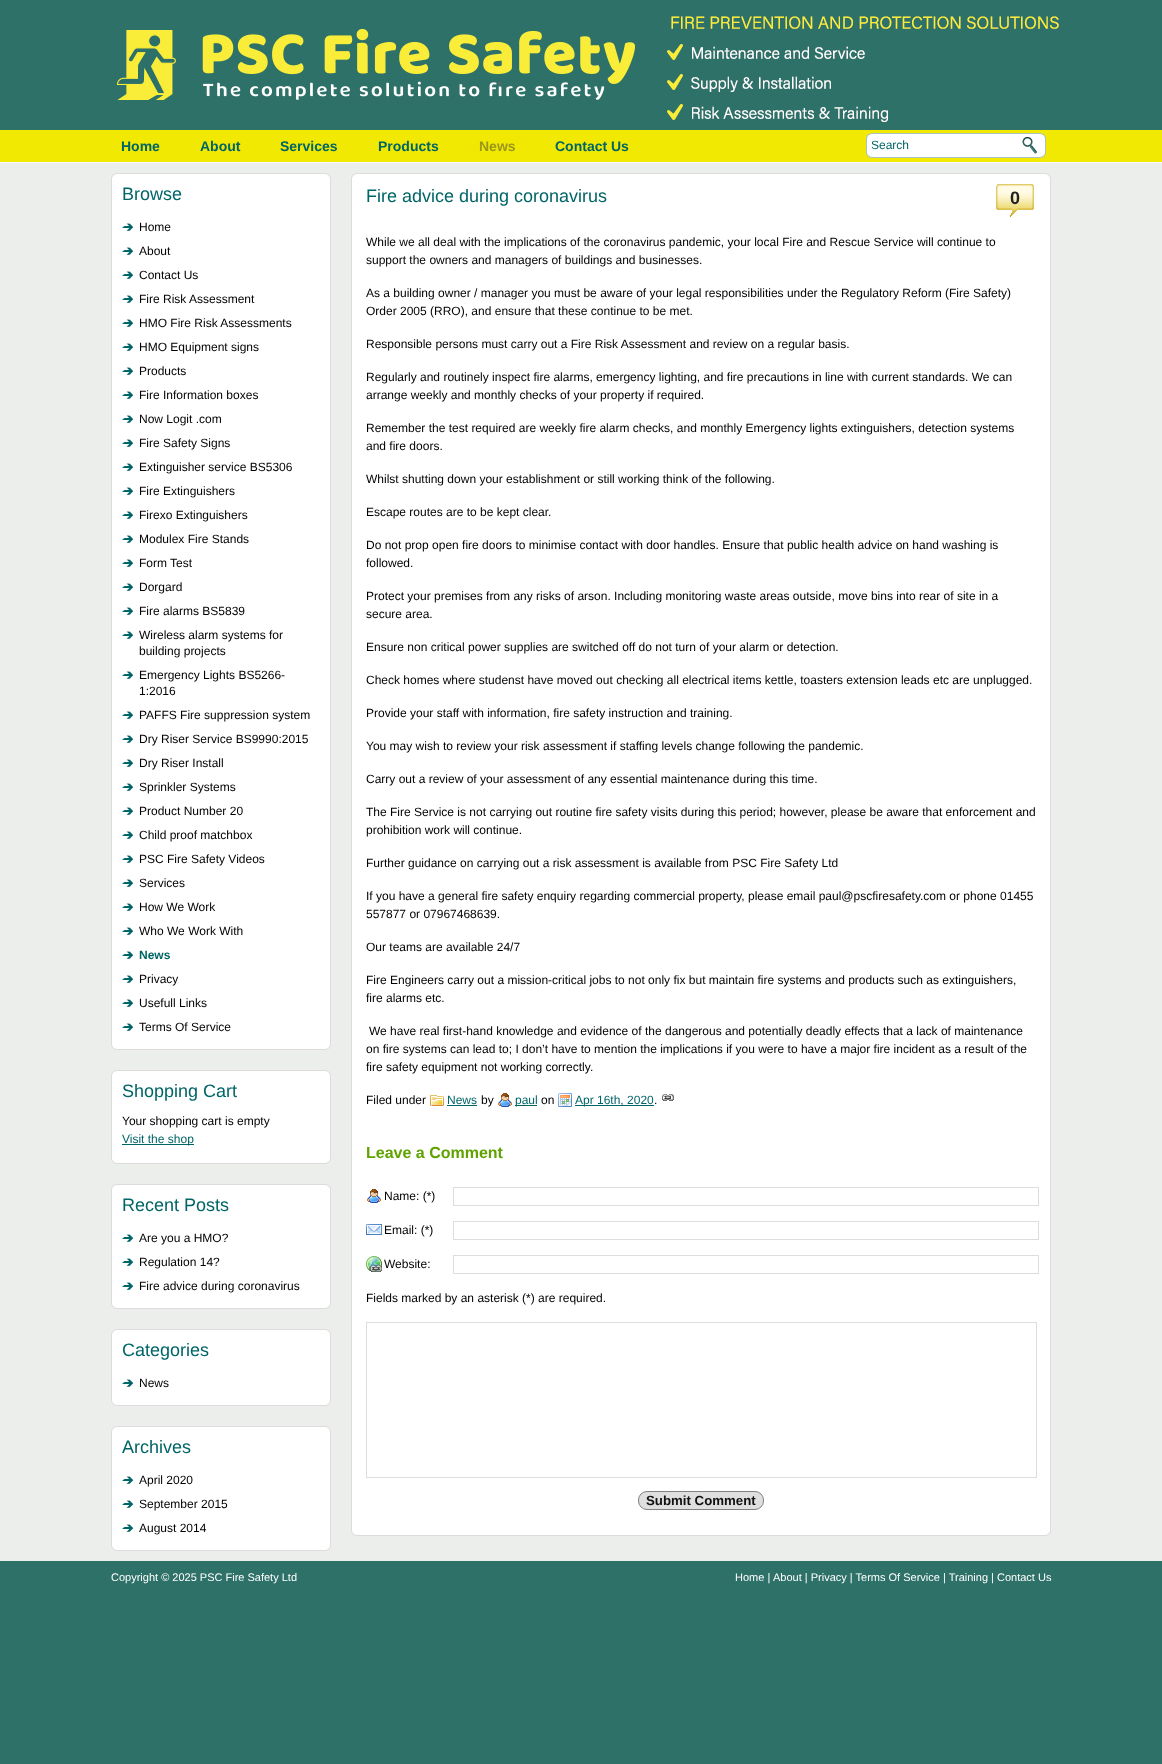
async function draw(canvas) {
	canvas.width = 1162;
	canvas.height = 1764;
	const c = canvas.getContext('2d');
	c.miterLimit = 4;
	c.fontKerning = 'normal';
	async function loadImage(src) {
		const img = new Image();
		img.src = src;
		await img.decode();
		return img;
	}

	c.fillStyle = '#2e7169';
	c.fillRect(0, 0, 1162, 1764);
	c.drawImage(await loadImage('img1.png'), 117, 16, 942, 106);
	c.fillStyle = '#f1e902';
	c.fillRect(0, 130, 1162, 32);
	c.fillStyle = '#fafafa';
	c.fillRect(0, 162, 1162, 1);
	c.font = 'bold 14px Liberation Sans';
	c.fillStyle = '#006567';
	for (const [text, x, y] of [
		['Home', 121, 151],
		['About', 200, 151],
		['Services', 280, 151],
		['Products', 378, 151],
	]) {
		c.fillText(text, x, y);
	}
	c.fillStyle = '#9c971b';
	c.fillText('News', 479, 151);
	c.fillStyle = '#006567';
	c.fillText('Contact Us', 555, 151);
	c.drawImage(await loadImage('img2.png'), 866, 133, 150, 25);
	c.font = '12px Liberation Sans';
	c.fillText('Search', 871, 149);
	c.drawImage(await loadImage('img3.png'), 1016, 133, 30, 25);
	c.fillStyle = '#eceeec';
	c.fillRect(0, 163, 1162, 1398);
	c.drawImage(await loadImage('img4.png'), 111, 173, 215, 6);
	c.drawImage(await loadImage('img5.png'), 326, 173, 5, 6);
	for (const [x, y, w, h, color] of [
		[112, 179, 218, 865, '#fff'],
		[330, 179, 1, 865, '#dddbdb'],
		[111, 179, 1, 865, '#dddbdb'],
	]) {
		c.fillStyle = color;
		c.fillRect(x, y, w, h);
	}
	c.font = '18px Liberation Sans';
	c.fillStyle = '#006567';
	c.fillText('Browse', 122, 200);
	c.drawImage(await loadImage('img6.png'), 122, 223, 12, 8);
	c.font = '12px Liberation Sans';
	c.fillStyle = '#000';
	c.fillText('Home', 139, 231);
	c.drawImage(await loadImage('img6.png'), 122, 247, 12, 8);
	c.fillText('About', 139, 255);
	c.drawImage(await loadImage('img6.png'), 122, 271, 12, 8);
	c.fillText('Contact Us', 139, 279);
	c.drawImage(await loadImage('img6.png'), 122, 295, 12, 8);
	c.fillText('Fire Risk Assessment', 139, 303);
	c.drawImage(await loadImage('img6.png'), 122, 319, 12, 8);
	c.fillText('HMO Fire Risk Assessments', 139, 327);
	c.drawImage(await loadImage('img6.png'), 122, 343, 12, 8);
	c.fillText('HMO Equipment signs', 139, 351);
	c.drawImage(await loadImage('img6.png'), 122, 367, 12, 8);
	c.fillText('Products', 139, 375);
	c.drawImage(await loadImage('img6.png'), 122, 391, 12, 8);
	c.fillText('Fire Information boxes', 139, 399);
	c.drawImage(await loadImage('img6.png'), 122, 415, 12, 8);
	c.fillText('Now Logit .com', 139, 423);
	c.drawImage(await loadImage('img6.png'), 122, 439, 12, 8);
	c.fillText('Fire Safety Signs', 139, 447);
	c.drawImage(await loadImage('img6.png'), 122, 463, 12, 8);
	c.fillText('Extinguisher service BS5306', 139, 471);
	c.drawImage(await loadImage('img6.png'), 122, 487, 12, 8);
	c.fillText('Fire Extinguishers', 139, 495);
	c.drawImage(await loadImage('img6.png'), 122, 511, 12, 8);
	c.fillText('Firexo Extinguishers', 139, 519);
	c.drawImage(await loadImage('img6.png'), 122, 535, 12, 8);
	c.fillText('Modulex Fire Stands', 139, 543);
	c.drawImage(await loadImage('img6.png'), 122, 559, 12, 8);
	c.fillText('Form Test', 139, 567);
	c.drawImage(await loadImage('img6.png'), 122, 583, 12, 8);
	c.fillText('Dorgard', 139, 591);
	c.drawImage(await loadImage('img6.png'), 122, 607, 12, 8);
	c.fillText('Fire alarms BS5839', 139, 615);
	c.drawImage(await loadImage('img6.png'), 122, 631, 12, 8);
	c.fillText('Wireless alarm systems for', 139, 639);
	c.fillText('building projects', 139, 655);
	c.drawImage(await loadImage('img6.png'), 122, 671, 12, 8);
	c.fillText('Emergency Lights BS5266-', 139, 679);
	c.fillText('1:2016', 139, 695);
	c.drawImage(await loadImage('img6.png'), 122, 711, 12, 8);
	c.fillText('PAFFS Fire suppression system', 139, 719);
	c.drawImage(await loadImage('img6.png'), 122, 735, 12, 8);
	c.fillText('Dry Riser Service BS9990:2015', 139, 743);
	c.drawImage(await loadImage('img6.png'), 122, 759, 12, 8);
	c.fillText('Dry Riser Install', 139, 767);
	c.drawImage(await loadImage('img6.png'), 122, 783, 12, 8);
	c.fillText('Sprinkler Systems', 139, 791);
	c.drawImage(await loadImage('img6.png'), 122, 807, 12, 8);
	c.fillText('Product Number 20', 139, 815);
	c.drawImage(await loadImage('img6.png'), 122, 831, 12, 8);
	c.fillText('Child proof matchbox', 139, 839);
	c.drawImage(await loadImage('img6.png'), 122, 855, 12, 8);
	c.fillText('PSC Fire Safety Videos', 139, 863);
	c.drawImage(await loadImage('img6.png'), 122, 879, 12, 8);
	c.fillText('Services', 139, 887);
	c.drawImage(await loadImage('img6.png'), 122, 903, 12, 8);
	c.fillText('How We Work', 139, 911);
	c.drawImage(await loadImage('img6.png'), 122, 927, 12, 8);
	c.fillText('Who We Work With', 139, 935);
	c.drawImage(await loadImage('img6.png'), 122, 951, 12, 8);
	c.font = 'bold 12px Liberation Sans';
	c.fillStyle = '#006567';
	c.fillText('News', 139, 959);
	c.drawImage(await loadImage('img6.png'), 122, 975, 12, 8);
	c.font = '12px Liberation Sans';
	c.fillStyle = '#000';
	c.fillText('Privacy', 139, 983);
	c.drawImage(await loadImage('img6.png'), 122, 999, 12, 8);
	c.fillText('Usefull Links', 139, 1007);
	c.drawImage(await loadImage('img6.png'), 122, 1023, 12, 8);
	c.fillText('Terms Of Service', 139, 1031);
	c.drawImage(await loadImage('img7.png'), 111, 1044, 215, 6);
	c.drawImage(await loadImage('img8.png'), 326, 1044, 5, 6);
	c.drawImage(await loadImage('img4.png'), 111, 1070, 215, 6);
	c.drawImage(await loadImage('img5.png'), 326, 1070, 5, 6);
	for (const [x, y, w, h, color] of [
		[112, 1076, 218, 82, '#fff'],
		[330, 1076, 1, 82, '#dddbdb'],
		[111, 1076, 1, 82, '#dddbdb'],
	]) {
		c.fillStyle = color;
		c.fillRect(x, y, w, h);
	}
	c.font = '18px Liberation Sans';
	c.fillStyle = '#006567';
	c.fillText('Shopping Cart', 122, 1097);
	c.font = '12px Liberation Sans';
	c.fillStyle = '#000';
	c.fillText('Your shopping cart is empty', 122, 1125);
	c.fillStyle = '#006567';
	c.fillRect(122, 1144, 72, 1);
	c.fillText('Visit the shop', 122, 1143);
	c.drawImage(await loadImage('img7.png'), 111, 1158, 215, 6);
	c.drawImage(await loadImage('img8.png'), 326, 1158, 5, 6);
	c.drawImage(await loadImage('img4.png'), 111, 1184, 215, 6);
	c.drawImage(await loadImage('img5.png'), 326, 1184, 5, 6);
	for (const [x, y, w, h, color] of [
		[112, 1190, 218, 113, '#fff'],
		[330, 1190, 1, 113, '#dddbdb'],
		[111, 1190, 1, 113, '#dddbdb'],
	]) {
		c.fillStyle = color;
		c.fillRect(x, y, w, h);
	}
	c.font = '18px Liberation Sans';
	c.fillStyle = '#006567';
	c.fillText('Recent Posts', 122, 1211);
	c.drawImage(await loadImage('img6.png'), 122, 1234, 12, 8);
	c.font = '12px Liberation Sans';
	c.fillStyle = '#000';
	c.fillText('Are you a HMO?', 139, 1242);
	c.drawImage(await loadImage('img6.png'), 122, 1258, 12, 8);
	c.fillText('Regulation 14?', 139, 1266);
	c.drawImage(await loadImage('img6.png'), 122, 1282, 12, 8);
	c.fillText('Fire advice during coronavirus', 139, 1290);
	c.drawImage(await loadImage('img7.png'), 111, 1303, 215, 6);
	c.drawImage(await loadImage('img8.png'), 326, 1303, 5, 6);
	c.drawImage(await loadImage('img4.png'), 111, 1329, 215, 6);
	c.drawImage(await loadImage('img5.png'), 326, 1329, 5, 6);
	for (const [x, y, w, h, color] of [
		[112, 1335, 218, 65, '#fff'],
		[330, 1335, 1, 65, '#dddbdb'],
		[111, 1335, 1, 65, '#dddbdb'],
	]) {
		c.fillStyle = color;
		c.fillRect(x, y, w, h);
	}
	c.font = '18px Liberation Sans';
	c.fillStyle = '#006567';
	c.fillText('Categories', 122, 1356);
	c.drawImage(await loadImage('img6.png'), 122, 1379, 12, 8);
	c.font = '12px Liberation Sans';
	c.fillStyle = '#000';
	c.fillText('News', 139, 1387);
	c.drawImage(await loadImage('img7.png'), 111, 1400, 215, 6);
	c.drawImage(await loadImage('img8.png'), 326, 1400, 5, 6);
	c.drawImage(await loadImage('img4.png'), 111, 1426, 215, 6);
	c.drawImage(await loadImage('img5.png'), 326, 1426, 5, 6);
	for (const [x, y, w, h, color] of [
		[112, 1432, 218, 113, '#fff'],
		[330, 1432, 1, 113, '#dddbdb'],
		[111, 1432, 1, 113, '#dddbdb'],
	]) {
		c.fillStyle = color;
		c.fillRect(x, y, w, h);
	}
	c.font = '18px Liberation Sans';
	c.fillStyle = '#006567';
	c.fillText('Archives', 122, 1453);
	c.drawImage(await loadImage('img6.png'), 122, 1476, 12, 8);
	c.font = '12px Liberation Sans';
	c.fillStyle = '#000';
	c.fillText('April 2020', 139, 1484);
	c.drawImage(await loadImage('img6.png'), 122, 1500, 12, 8);
	c.fillText('September 2015', 139, 1508);
	c.drawImage(await loadImage('img6.png'), 122, 1524, 12, 8);
	c.fillText('August 2014', 139, 1532);
	c.drawImage(await loadImage('img7.png'), 111, 1545, 215, 6);
	c.drawImage(await loadImage('img8.png'), 326, 1545, 5, 6);
	c.drawImage(await loadImage('img9.png'), 351, 173, 695, 6);
	c.drawImage(await loadImage('img5.png'), 1046, 173, 5, 6);
	for (const [x, y, w, h, color] of [
		[352, 179, 698, 1351, '#fff'],
		[1050, 179, 1, 1351, '#dddbdb'],
		[351, 179, 1, 1351, '#dddbdb'],
	]) {
		c.fillStyle = color;
		c.fillRect(x, y, w, h);
	}
	c.font = '18px Liberation Sans';
	c.fillStyle = '#006567';
	c.fillText('Fire advice during coronavirus', 366, 202);
	c.drawImage(await loadImage('img10.png'), 996, 184, 38, 33);
	c.font = 'bold 18px Liberation Sans';
	c.fillStyle = '#222';
	c.fillText('0', 1010, 204);
	c.font = '12px Liberation Sans';
	c.fillStyle = '#000';
	for (const [text, x, y] of [
		['While we all deal with the implications of the coronavirus pandemic, your local Fire and Rescue Service will continue to', 366, 246],
		['support the owners and managers of buildings and businesses.', 366, 264],
		['As a building owner / manager you must be aware of your legal responsibilities under the Regulatory Reform (Fire Safety)', 366, 297],
		['Order 2005 (RRO), and ensure that these continue to be met.', 366, 315],
		['Responsible persons must carry out a Fire Risk Assessment and review on a regular basis.', 366, 348],
		['Regularly and routinely inspect fire alarms, emergency lighting, and fire precautions in line with current standards. We can', 366, 381],
		['arrange weekly and monthly checks of your property if required.', 366, 399],
		['Remember the test required are weekly fire alarm checks, and monthly Emergency lights extinguishers, detection systems', 366, 432],
		['and fire doors.', 366, 450],
		['Whilst shutting down your establishment or still working think of the following.', 366, 483],
		['Escape routes are to be kept clear.', 366, 516],
		['Do not prop open fire doors to minimise contact with door handles. Ensure that public health advice on hand washing is', 366, 549],
		['followed.', 366, 567],
		['Protect your premises from any risks of arson. Including monitoring waste areas outside, move bins into rear of site in a', 366, 600],
		['secure area.', 366, 618],
		['Ensure non critical power supplies are switched off do not turn of your alarm or detection.', 366, 651],
		['Check homes where studenst have moved out checking all electrical items kettle, toasters extension leads etc are unplugged.', 366, 684],
		['Provide your staff with information, fire safety instruction and training.', 366, 717],
		['You may wish to review your risk assessment if staffing levels change following the pandemic.', 366, 750],
		['Carry out a review of your assessment of any essential maintenance during this time.', 366, 783],
		['The Fire Service is not carrying out routine fire safety visits during this period; however, please be aware that enforcement and', 366, 816],
		['prohibition work will continue.', 366, 834],
		['Further guidance on carrying out a risk assessment is available from PSC Fire Safety Ltd', 366, 867],
		['If you have a general fire safety enquiry regarding commercial property, please email paul@pscfiresafety.com or phone 01455', 366, 900],
		['557877 or 07967468639.', 366, 918],
		['Our teams are available 24/7', 366, 951],
		['Fire Engineers carry out a mission-critical jobs to not only fix but maintain fire systems and products such as extinguishers,', 366, 984],
		['fire alarms etc.', 366, 1002],
		['We have real first-hand knowledge and evidence of the dangerous and potentially deadly effects that a lack of maintenance', 369, 1035],
		['on fire systems can lead to; I don’t have to mention the implications if you were to have a major fire incident as a result of the', 366, 1053],
		['fire safety equipment not working correctly.', 366, 1071],
		['Filed under', 366, 1104],
	]) {
		c.fillText(text, x, y);
	}
	c.drawImage(await loadImage('img11.png'), 430, 1095, 14, 11);
	c.fillStyle = '#006567';
	c.fillText('News', 447, 1104);
	c.fillRect(447, 1105, 30, 1);
	c.fillStyle = '#000';
	c.fillText('by', 481, 1104);
	c.drawImage(await loadImage('img12.png'), 498, 1093, 14, 14);
	c.fillStyle = '#006567';
	c.fillRect(515, 1105, 22, 1);
	c.fillText('paul', 515, 1104);
	c.fillStyle = '#000';
	c.fillText('on', 541, 1104);
	c.drawImage(await loadImage('img13.png'), 558, 1093, 14, 14);
	c.fillStyle = '#006567';
	c.fillRect(575, 1105, 79, 1);
	c.fillText('Apr 16th, 2020', 575, 1104);
	c.fillStyle = '#000';
	c.fillText('.', 654, 1104);
	c.drawImage(await loadImage('img14.png'), 662, 1094, 12, 7);
	c.font = 'bold 16px Liberation Sans';
	c.fillStyle = '#60a300';
	c.fillText('Leave a Comment', 366, 1158);
	c.drawImage(await loadImage('img12.png'), 367, 1189, 14, 14);
	c.font = '12px Liberation Sans';
	c.fillStyle = '#000';
	c.fillText('Name: (*)', 384, 1200);
	c.strokeStyle = '#ddd';
	c.strokeRect(453.5, 1187.5, 585, 18);
	c.drawImage(await loadImage('img15.png'), 366, 1224, 16, 11);
	c.fillText('Email: (*)', 384, 1234);
	c.strokeRect(453.5, 1221.5, 585, 18);
	c.drawImage(await loadImage('img16.png'), 366, 1256, 16, 16);
	c.fillText('Website:', 384, 1268);
	c.strokeRect(453.5, 1255.5, 585, 18);
	c.fillText('Fields marked by an asterisk (*) are required.', 366, 1302);
	c.strokeRect(366.5, 1322.5, 670, 155);
	c.fillStyle = '#dfdfdf';
	c.beginPath();
	c.roundRect(638.5, 1491.5, 125, 18, 8.5);
	c.fill();
	c.strokeStyle = '#808080';
	c.stroke();
	c.font = 'bold 13.25px Liberation Sans';
	c.fillStyle = '#111';
	c.fillText('Submit Comment', 646, 1505);
	c.drawImage(await loadImage('img17.png'), 351, 1530, 695, 6);
	c.drawImage(await loadImage('img8.png'), 1046, 1530, 5, 6);
	c.font = '11px Liberation Sans';
	c.fillStyle = '#fff';
	for (const [text, x, y] of [
		['Copyright © 2025 PSC Fire Safety Ltd', 111, 1581],
		['Home |', 735, 1581],
		['About | Privacy | Terms Of Service | Training | Contact Us', 773, 1581],
	]) {
		c.fillText(text, x, y);
	}
}

draw(document.querySelector('canvas'));
